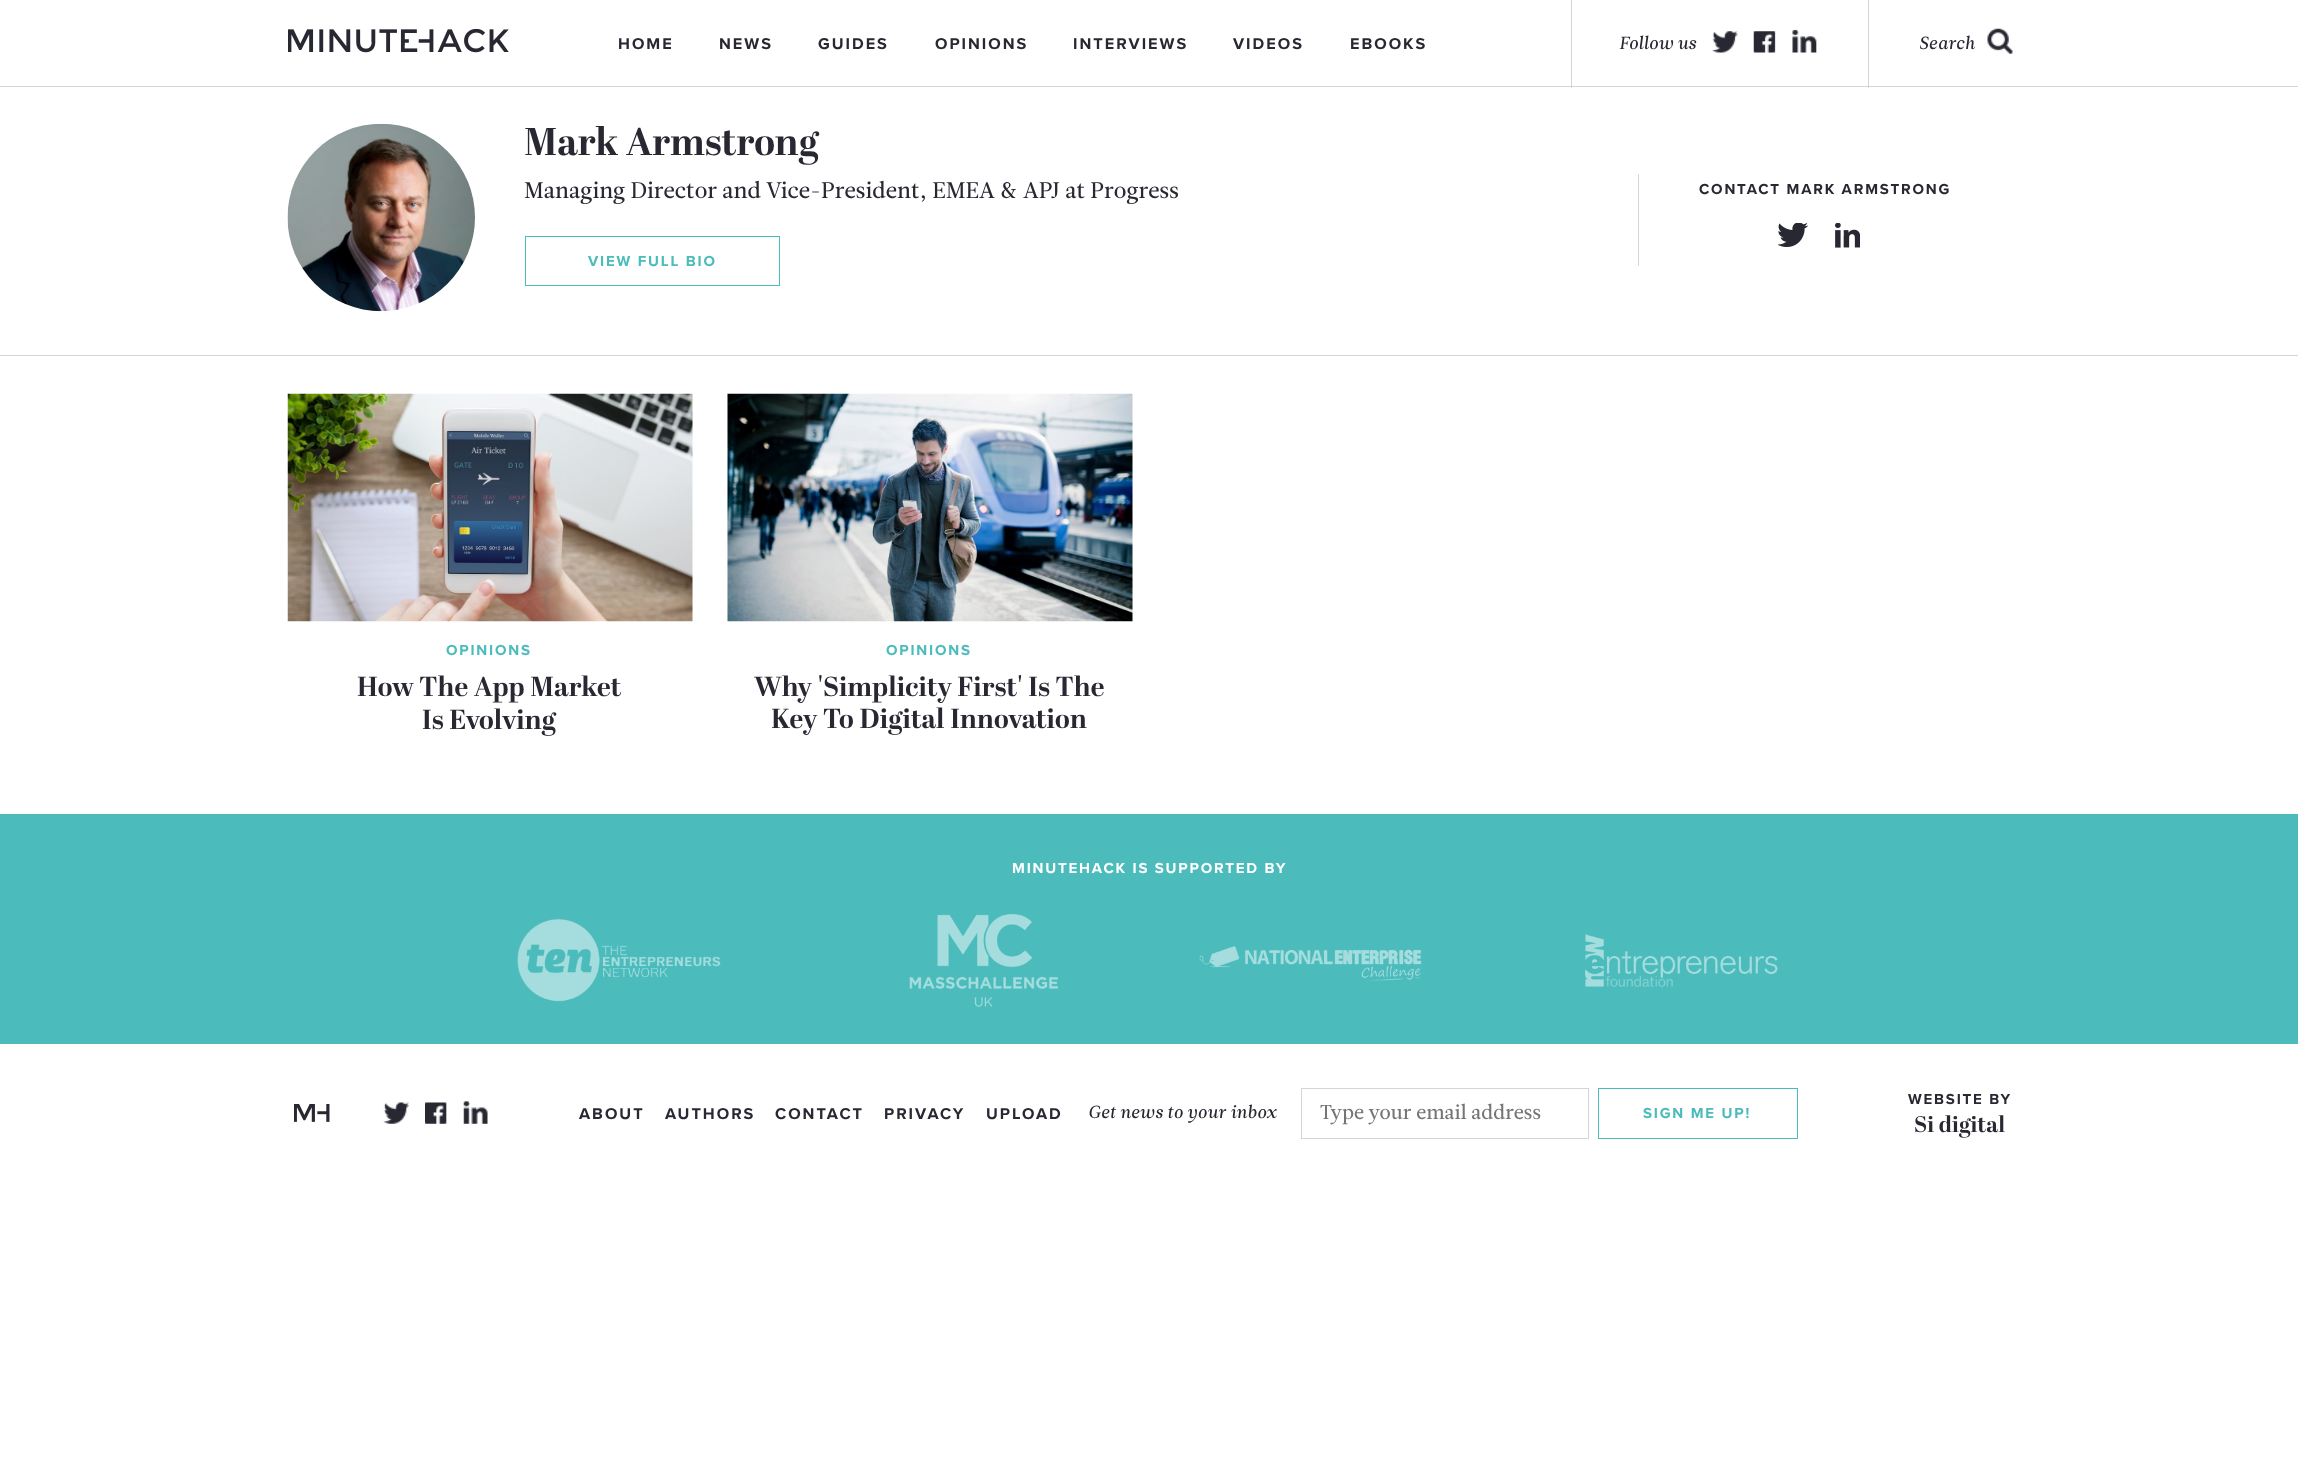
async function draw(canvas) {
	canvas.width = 2298;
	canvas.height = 1482;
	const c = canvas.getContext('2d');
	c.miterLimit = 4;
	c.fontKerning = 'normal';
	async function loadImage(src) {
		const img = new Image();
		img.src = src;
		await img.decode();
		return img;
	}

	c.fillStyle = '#fff';
	c.fillRect(0, 0, 2298, 1482);
	c.fillStyle = '#d4d5d6';
	c.fillRect(0, 86, 2298, 1);
	c.drawImage(await loadImage('img1.png'), 288, 29, 221, 24);
	c.letterSpacing = '2px';
	c.font = 'bold 16.25px Proxima Nova';
	c.fillStyle = '#282832';
	for (const [text, x, y] of [
		['HOME', 618, 49],
		['NEWS', 719, 49],
		['GUIDES', 818, 49],
		['OPINIONS', 935, 49],
		['INTERVIEWS', 1073, 49],
		['VIDEOS', 1233, 49],
		['EBOOKS', 1350, 49],
	]) {
		c.fillText(text, x, y);
	}
	c.fillStyle = '#d4d5d6';
	c.fillRect(1868, 0, 1, 88);
	c.fillRect(1571, 0, 1, 88);
	c.letterSpacing = '0px';
	c.font = 'italic 17.5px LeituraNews';
	c.fillStyle = '#282832';
	c.fillText('Follow us', 1619, 49);
	c.drawImage(await loadImage('img2.png'), 1712, 31, 26, 22);
	c.drawImage(await loadImage('img3.png'), 1753, 31, 23, 22);
	c.drawImage(await loadImage('img4.png'), 1792, 29, 25, 24);
	c.fillText('Search', 1919, 49);
	c.drawImage(await loadImage('img5.png'), 1987, 28, 26, 26);
	c.fillStyle = '#d4d5d6';
	c.fillRect(0, 355, 2298, 1);
	c.drawImage(await loadImage('img6.png'), 287, 123, 188, 189);
	c.font = 'bold 38.75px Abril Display';
	c.fillStyle = '#282832';
	c.fillText('Mark Armstrong', 524, 155);
	c.font = '22.5px LeituraNews';
	c.fillText('Managing Director and Vice-President, EMEA & APJ at Progress', 524, 198);
	c.strokeStyle = '#4bbbbc';
	c.strokeRect(525.5, 236.5, 254, 49);
	c.letterSpacing = '1.8px';
	c.font = 'bold 15px Proxima Nova';
	c.fillStyle = '#4bbbbc';
	c.fillText('VIEW FULL BIO', 588, 266);
	c.fillStyle = '#d4d5d6';
	c.fillRect(1638, 174, 1, 92);
	c.fillStyle = '#282832';
	c.fillText('CONTACT MARK ARMSTRONG', 1699, 194);
	c.drawImage(await loadImage('img7.png'), 1778, 223, 30, 24);
	c.drawImage(await loadImage('img8.png'), 1835, 223, 25, 25);
	c.drawImage(await loadImage('img9.png'), 287, 393, 406, 229);
	c.fillStyle = '#4bbbbc';
	c.fillText('OPINIONS', 446, 655);
	c.letterSpacing = '0.1px';
	c.font = 'bold 27.5px Abril Display';
	c.fillStyle = '#282832';
	c.fillText('How The App Market', 357, 696);
	c.fillText('Is Evolving', 422, 729);
	c.drawImage(await loadImage('img10.png'), 727, 393, 406, 229);
	c.letterSpacing = '1.8px';
	c.font = 'bold 15px Proxima Nova';
	c.fillStyle = '#4bbbbc';
	c.fillText('OPINIONS', 886, 655);
	c.letterSpacing = '0.1px';
	c.font = 'bold 27.5px Abril Display';
	c.fillStyle = '#282832';
	c.fillText('Why \'Simplicity First\' Is The', 754, 696);
	c.fillText('Key To Digital Innovation', 771, 728);
	c.fillStyle = '#4bbbbc';
	c.fillRect(0, 814, 2298, 230);
	c.letterSpacing = '1.8px';
	c.font = 'bold 15px Proxima Nova';
	c.fillStyle = '#fff';
	c.fillText('MINUTEHACK IS SUPPORTED BY', 1012, 873);
	c.drawImage(await loadImage('img11.png'), 517, 919, 204, 83);
	c.drawImage(await loadImage('img12.png'), 909, 914, 149, 93);
	c.drawImage(await loadImage('img13.png'), 1199, 946, 223, 35);
	c.drawImage(await loadImage('img14.png'), 1585, 934, 193, 53);
	c.drawImage(await loadImage('img15.png'), 294, 1104, 36, 18);
	c.drawImage(await loadImage('img16.png'), 383, 1102, 26, 22);
	c.drawImage(await loadImage('img17.png'), 425, 1102, 22, 22);
	c.drawImage(await loadImage('img18.png'), 463, 1101, 25, 23);
	c.letterSpacing = '2px';
	c.font = 'bold 16.25px Proxima Nova';
	c.fillStyle = '#282832';
	for (const [text, x, y] of [
		['ABOUT', 579, 1119],
		['AUTHORS', 665, 1119],
		['CONTACT', 775, 1119],
		['PRIVACY', 884, 1119],
		['UPLOAD', 986, 1119],
	]) {
		c.fillText(text, x, y);
	}
	c.letterSpacing = '0px';
	c.font = 'italic 17.5px LeituraNews';
	c.fillText('Get news to your inbox', 1088, 1118);
	c.strokeStyle = '#d4d5d6';
	c.strokeRect(1301.5, 1088.5, 287, 50);
	c.font = '20px LeituraNews';
	c.fillStyle = '#757575';
	c.fillText('Type your email address', 1320, 1119);
	c.strokeStyle = '#4bbbbc';
	c.strokeRect(1598.5, 1088.5, 199, 50);
	c.letterSpacing = '1.8px';
	c.font = 'bold 15px Proxima Nova';
	c.fillStyle = '#4bbbbc';
	c.fillText('SIGN ME UP!', 1643, 1118);
	c.fillStyle = '#282832';
	c.fillText('WEBSITE BY', 1908, 1104);
	c.letterSpacing = '0.1px';
	c.font = 'bold 22.5px Abril Display';
	c.fillText('Si digital', 1914, 1132);
}

draw(document.querySelector('canvas'));
